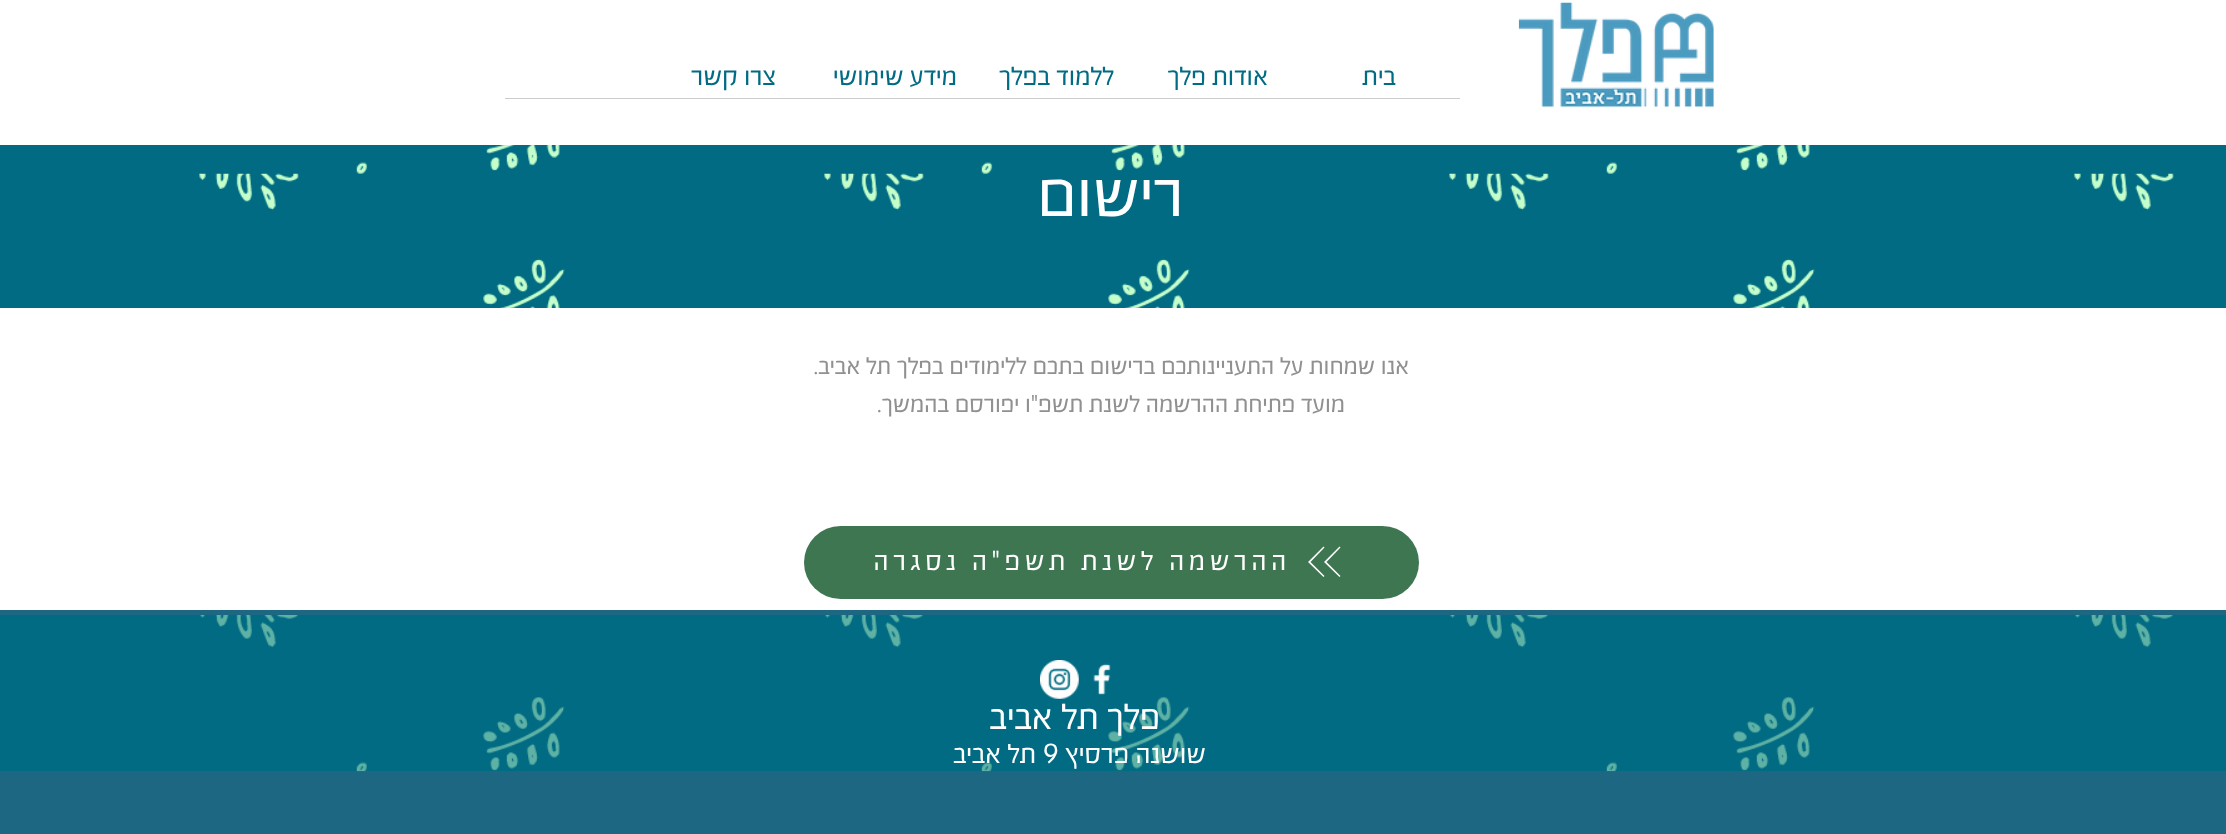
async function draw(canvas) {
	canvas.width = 2226;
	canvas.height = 834;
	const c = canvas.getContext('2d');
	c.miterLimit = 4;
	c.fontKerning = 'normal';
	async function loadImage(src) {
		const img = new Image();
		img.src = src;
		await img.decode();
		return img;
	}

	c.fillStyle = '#fff';
	c.fillRect(0, 0, 2226, 834);
	c.drawImage(await loadImage('img1.png'), 1518, 2, 196, 106);
	c.direction = 'rtl';
	c.font = '30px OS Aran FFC';
	c.fillStyle = '#006b82';
	for (const [text, x, y] of [
		['בית', 1396, 85],
		['אודות פלך', 1268, 85],
		['ללמוד בפלך', 1114, 85],
		['מידע שימושי', 957, 85],
		['צרו קשר', 776, 85],
	]) {
		c.fillText(text, x, y);
	}
	c.fillStyle = '#ccc';
	c.fillRect(505, 98, 955, 1);
	c.fillStyle = '#006b82';
	c.fillRect(0, 145, 2226, 163);
	c.drawImage(await loadImage('img2.png'), 199, 145, 1975, 163);
	c.font = '75px OS Aran FFC';
	c.fillStyle = '#fff';
	c.fillText('רישום', 1184, 216);
	c.font = '27.5px OS Aran FFC';
	c.fillStyle = '#909090';
	c.fillText('אנו שמחות על התעניינותכם ברישום בתכם ללימודים בפלך תל אביב.', 1409, 374);
	c.fillText('מועד פתיחת ההרשמה לשנת תשפ"ו יפורסם בהמשך.', 1345, 412);
	c.fillStyle = '#3f7652';
	c.beginPath();
	c.roundRect(804, 526, 615, 73, 36.5);
	c.fill();
	c.fillStyle = '#fff';
	c.beginPath();
	c.moveTo(1323.5, 546.5);
	c.lineTo(1324.5, 547.5);
	c.lineTo(1310.5, 562);
	c.lineTo(1324.5, 576);
	c.lineTo(1323.5, 577);
	c.lineTo(1308, 562);
	c.closePath();
	c.moveTo(1339.5, 546.5);
	c.lineTo(1340.5, 547.5);
	c.lineTo(1326.5, 562);
	c.lineTo(1340.5, 576);
	c.lineTo(1339.5, 577);
	c.lineTo(1324, 562);
	c.closePath();
	c.fill('evenodd');
	c.letterSpacing = '4.7px';
	c.font = '31.25px OS Aran FFC';
	c.fillText('ההרשמה לשנת תשפ"ה נסגרה', 1291, 570);
	c.fillStyle = '#1e6783';
	c.fillRect(0, 610, 2226, 224);
	c.fillStyle = '#006b82';
	c.fillRect(0, 615, 2226, 156);
	c.drawImage(await loadImage('img3.png'), 200, 615, 1974, 157);
	c.drawImage(await loadImage('img4.png'), 1093, 663, 18, 32);
	c.drawImage(await loadImage('img5.png'), 1040, 660, 39, 39);
	c.letterSpacing = '0px';
	c.font = '41.25px OS Aran FFC';
	c.fillStyle = '#fff';
	c.fillText('פלך תל אביב', 1160, 729);
	c.font = '31.25px OS Aran FFC';
	c.fillText('שושנה פרסיץ', 1206, 763);
	c.direction = 'ltr';
	c.fillText('9', 1043, 763);
	c.direction = 'rtl';
	c.fillText('תל אביב', 1036, 763);
}

draw(document.querySelector('canvas'));
